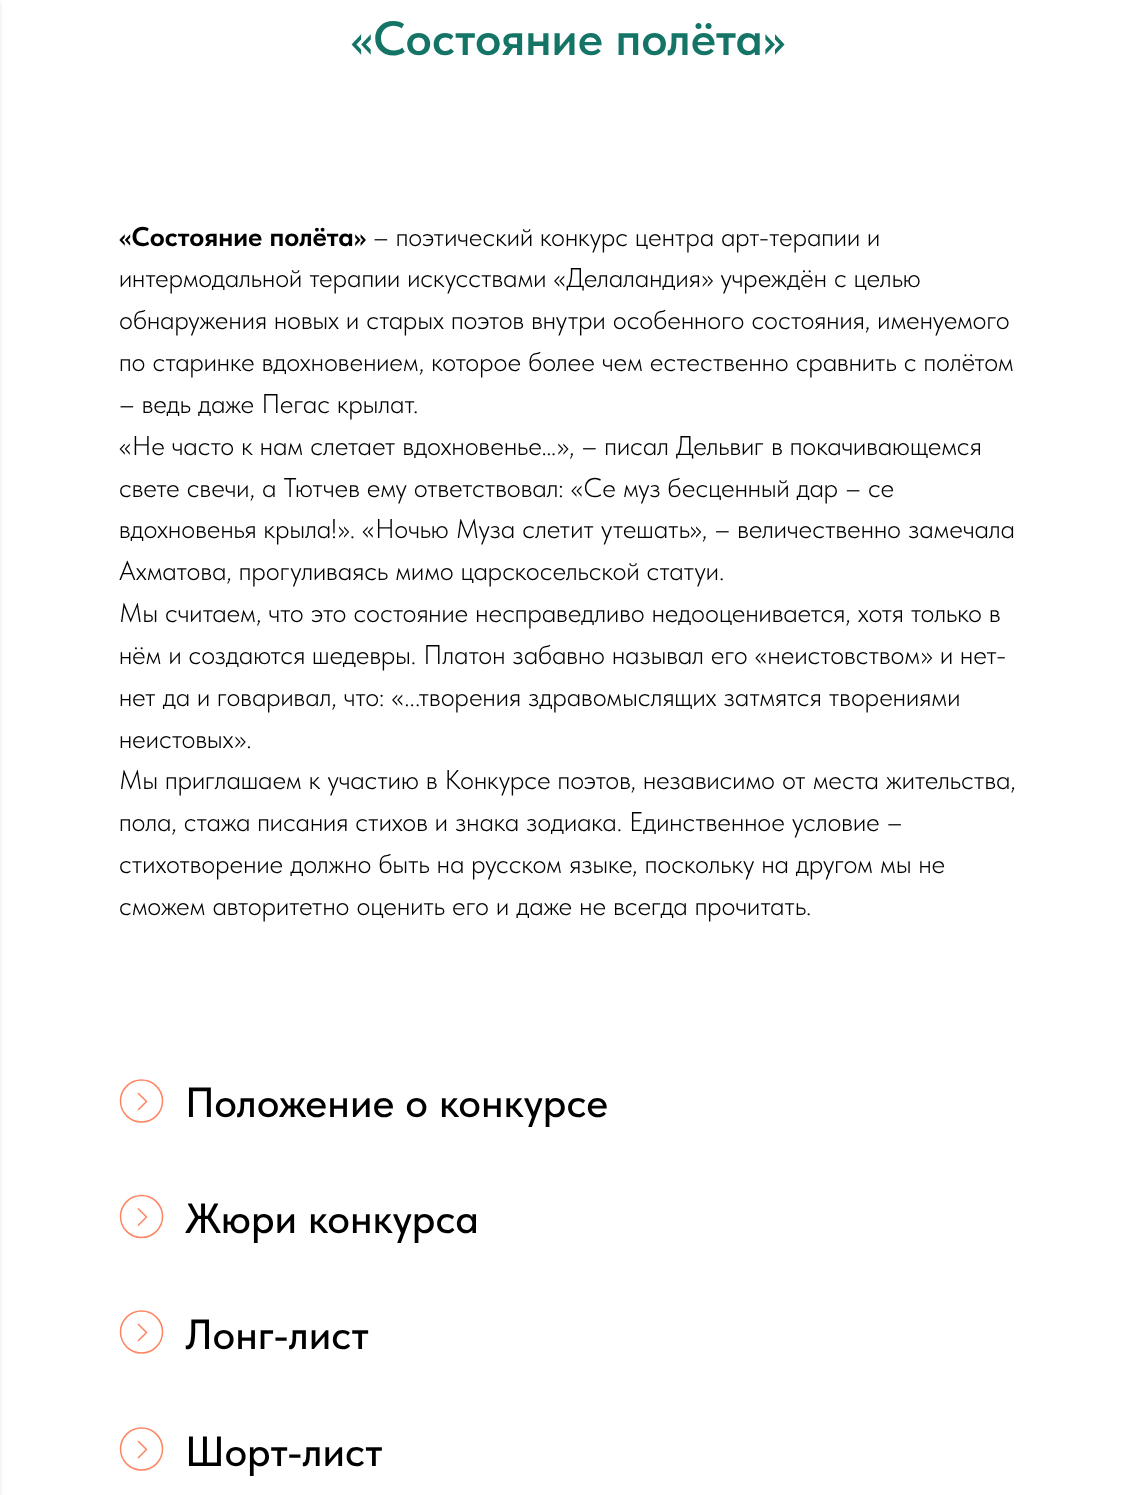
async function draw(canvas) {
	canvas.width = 1136;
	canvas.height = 1495;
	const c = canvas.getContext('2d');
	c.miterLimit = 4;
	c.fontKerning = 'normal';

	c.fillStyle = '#fff';
	c.fillRect(0, 0, 1136, 1495);
	c.fillStyle = '#0000001a';
	c.filter = 'blur(2px)';
	c.beginPath();
	c.rect(-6, 2, 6, 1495);
	c.fill();
	c.filter = 'none';
	c.font = '600 48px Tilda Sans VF';
	c.fillStyle = '#147566';
	c.fillText('«Состояние полёта»', 351, 55);
	c.font = 'bold 27px Tilda Sans VF';
	c.fillStyle = '#000';
	c.fillText('«Состояние полёта»', 119, 246);
	c.font = '300 27px Tilda Sans VF';
	for (const [text, x, y] of [
		['– поэтический конкурс центра арт-терапии и', 373, 246],
		['интермодальной терапии искусствами «Делаландия» учреждён с целью', 119, 287],
		['обнаружения новых и старых поэтов внутри особенного состояния, именуемого', 119, 329],
		['по старинке вдохновением, которое более чем естественно сравнить с полётом', 119, 371],
		['– ведь даже Пегас крылат.', 119, 413],
		['«Не часто к нам слетает вдохновенье…», – писал Дельвиг в покачивающемся', 119, 455],
		['свете свечи, а Тютчев ему ответствовал: «Се муз бесценный дар – се', 119, 497],
		['вдохновенья крыла!». «Ночью Муза слетит утешать», – величественно замечала', 119, 538],
		['Ахматова, прогуливаясь мимо царскосельской статуи.', 119, 580],
		['Мы считаем, что это состояние несправедливо недооценивается, хотя только в', 119, 622],
		['нём и создаются шедевры. Платон забавно называл его «неистовством» и нет-', 119, 664],
		['нет да и говаривал, что: «...творения здравомыслящих затмятся творениями', 119, 706],
		['неистовых».', 119, 748],
		['Мы приглашаем к участию в Конкурсе поэтов, независимо от места жительства,', 119, 789],
		['пола, стажа писания стихов и знака зодиака. Единственное условие –', 119, 831],
		['стихотворение должно быть на русском языке, поскольку на другом мы не', 119, 873],
		['сможем авторитетно оценить его и даже не всегда прочитать.', 119, 915],
	]) {
		c.fillText(text, x, y);
	}
	c.beginPath();
	c.arc(141.5, 1101, 21, 0, 2 * Math.PI);
	c.strokeStyle = '#ff8562';
	c.lineWidth = 1.5;
	c.stroke();
	c.beginPath();
	c.moveTo(138, 1110);
	c.lineTo(146.5, 1101.5);
	c.lineTo(138, 1093);
	c.stroke();
	c.font = '500 42px Tilda Sans VF';
	c.fillText('Положение о конкурсе', 185, 1117);
	c.beginPath();
	c.arc(141.5, 1216.5, 21, 0, 2 * Math.PI);
	c.stroke();
	c.beginPath();
	c.moveTo(138, 1225.5);
	c.lineTo(146.5, 1217);
	c.lineTo(138, 1208.5);
	c.stroke();
	c.fillText('Жюри конкурса', 185, 1233);
	c.beginPath();
	c.arc(141.5, 1332, 21, 0, 2 * Math.PI);
	c.stroke();
	c.beginPath();
	c.moveTo(138, 1341);
	c.lineTo(146.5, 1332.5);
	c.lineTo(138, 1324);
	c.stroke();
	c.fillText('Лонг-лист', 185, 1349);
	c.beginPath();
	c.arc(141.5, 1449, 21, 0, 2 * Math.PI);
	c.stroke();
	c.beginPath();
	c.moveTo(138, 1458);
	c.lineTo(146.5, 1449.5);
	c.lineTo(138, 1441);
	c.stroke();
	c.fillText('Шорт-лист', 185, 1466);
}

draw(document.querySelector('canvas'));
